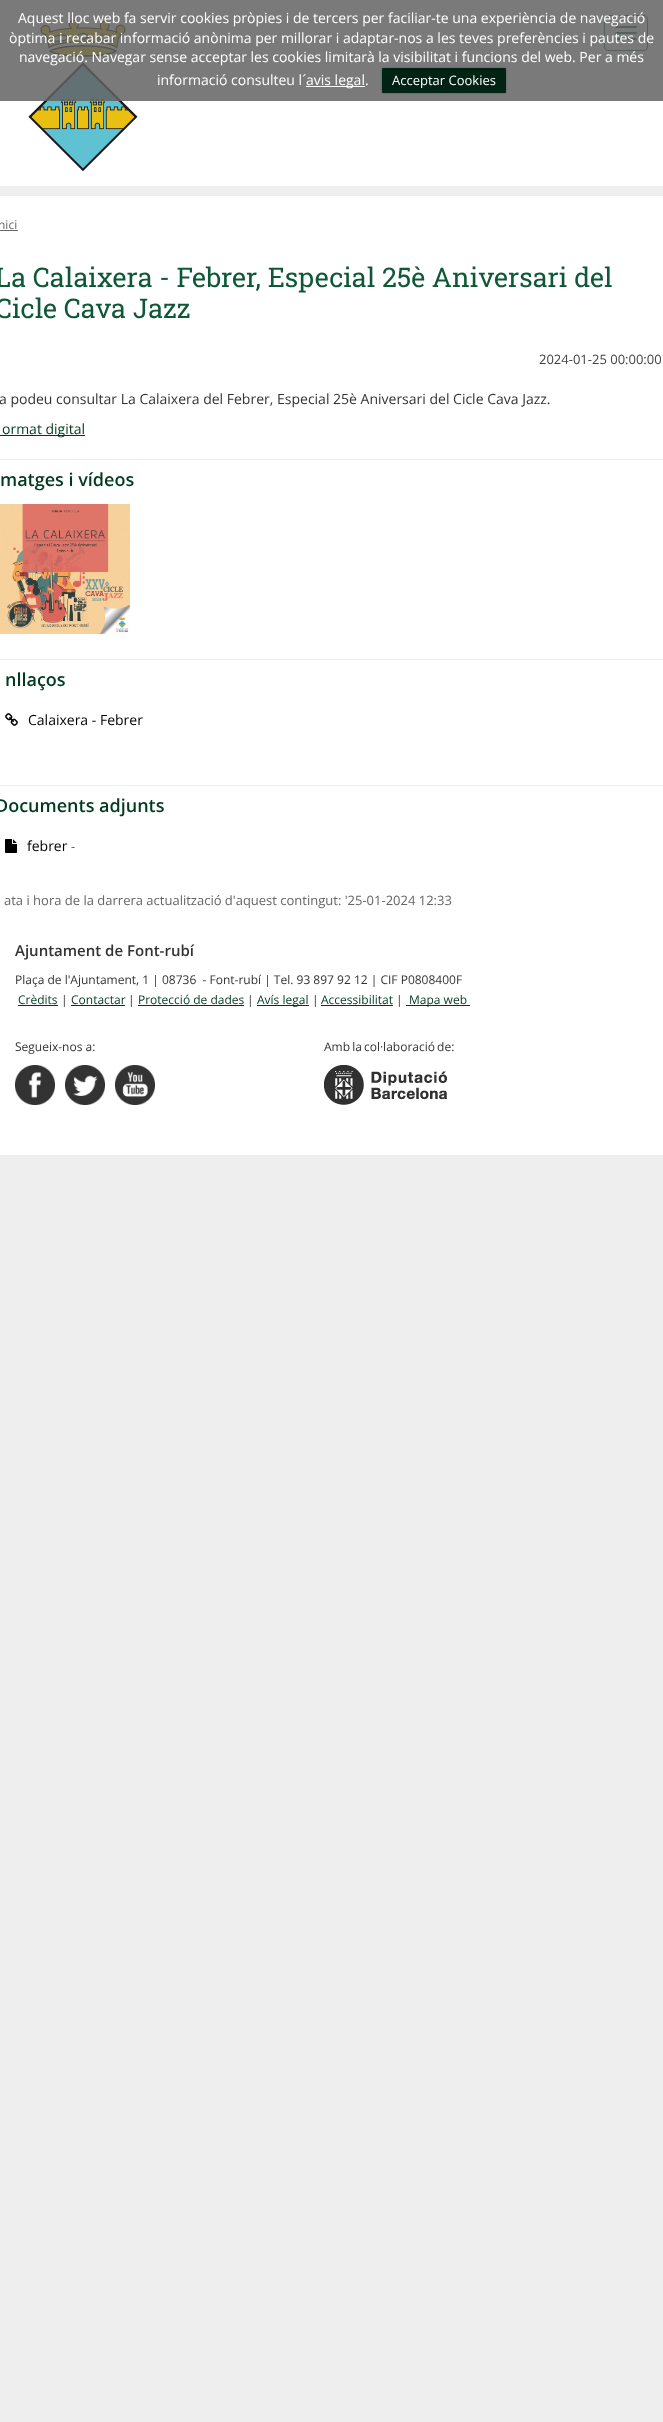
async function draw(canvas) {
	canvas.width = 663;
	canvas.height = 2422;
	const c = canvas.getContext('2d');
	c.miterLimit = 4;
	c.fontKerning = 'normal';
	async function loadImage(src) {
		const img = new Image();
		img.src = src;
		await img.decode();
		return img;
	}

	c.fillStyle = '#eee';
	c.fillRect(0, 0, 663, 2422);
	c.fillStyle = '#fff';
	c.fillRect(0, 0, 663, 186);
	c.drawImage(await loadImage('img1.png'), 28, 19, 110, 153);
	c.beginPath();
	c.roundRect(604.5, 15.5, 43, 35, 3.5);
	c.strokeStyle = '#0f5837';
	c.stroke();
	c.fillStyle = '#0f5837';
	c.beginPath();
	c.roundRect(615, 26, 22, 2, 1);
	c.fill();
	c.beginPath();
	c.roundRect(615, 32, 22, 2, 1);
	c.fill();
	c.beginPath();
	c.roundRect(615, 38, 22, 2, 1);
	c.fill();
	c.fillStyle = '#636363d9';
	c.fillRect(0, 0, 663, 101);
	c.font = '14px Open Sans';
	c.fillStyle = '#fff';
	for (const [text, x, y] of [
		['Aquest lloc web fa servir cookies pròpies i de tercers per faciliar-te una experiència de navegació', 18, 23],
		['òptima i recabar informació anònima per millorar i adaptar-nos a les teves preferències i pautes de', 9, 43],
		['navegació. Navegar sense acceptar les cookies limitarà la visibilitat i funcions del web. Per a més', 19, 62],
		['informació consulteu l´', 157, 85],
	]) {
		c.fillText(text, x, y);
	}
	c.fillRect(306, 86, 59, 1);
	c.fillText('avis legal.', 306, 85);
	c.fillStyle = '#00000040';
	c.filter = 'blur(1px)';
	c.beginPath();
	c.roundRect(382, 68, 124, 25, 1);
	c.fill();
	c.filter = 'none';
	c.fillStyle = '#002313';
	c.beginPath();
	c.roundRect(382, 68, 124, 25, 1);
	c.fill();
	c.font = '13px Open Sans';
	c.fillStyle = '#fff';
	c.fillText('Acceptar Cookies', 392, 85);
	c.fillRect(0, 196, 663, 959);
	c.font = '12px Open Sans';
	c.fillStyle = '#666';
	c.fillText('nici', -2, 229);
	c.fillRect(0, 230, 18, 1);
	c.font = '27px Roboto Slab';
	c.fillStyle = '#0f5837';
	c.fillText('La Calaixera - Febrer, Especial 25è Aniversari del', -5, 287);
	c.fillText('Cicle Cava Jazz', -5, 318);
	c.font = '13px Open Sans';
	c.fillStyle = '#444';
	c.fillText('2024-01-25 00:00:00', 539, 364);
	c.font = '14px Open Sans';
	c.fillStyle = '#333';
	c.fillText('a podeu consultar La Calaixera del Febrer, Especial 25è Aniversari del Cicle Cava Jazz.', -1, 404);
	c.fillStyle = '#003a20';
	c.fillRect(0, 435, 85, 1);
	c.fillText('ormat digital', 2, 434);
	c.fillStyle = '#eee';
	c.fillRect(0, 459, 663, 1);
	c.font = '600 18px Open Sans';
	c.fillStyle = '#003a20';
	c.fillText('matges i vídeos', 0, 486);
	c.drawImage(await loadImage('img2.png'), 0, 504, 130, 130);
	c.fillStyle = '#eee';
	c.fillRect(0, 659, 663, 1);
	c.fillStyle = '#003a20';
	c.fillText('nllaços', 5, 686);
	c.drawImage(await loadImage('img3.png'), 5, 713, 13, 13);
	c.font = '14px Open Sans';
	c.fillStyle = '#000';
	c.fillText('Calaixera - Febrer', 28, 725);
	c.fillStyle = '#eee';
	c.fillRect(0, 785, 663, 1);
	c.font = '600 18px Open Sans';
	c.fillStyle = '#003a20';
	c.fillText('Documents adjunts', -5, 812);
	c.drawImage(await loadImage('img4.png'), 5, 839, 12, 14);
	c.font = '14px Open Sans';
	c.fillStyle = '#000';
	c.fillText('febrer', 27, 851);
	c.font = '13px Open Sans';
	c.fillStyle = '#666';
	c.fillText('-', 71, 851);
	c.fillText('ata i hora de la darrera actualització d\'aquest contingut: \'25-01-2024 12:33', 4, 905);
	c.font = '600 15px Open Sans';
	c.fillStyle = '#333';
	c.fillText('Ajuntament de Font-rubí', 15, 956);
	c.font = '12px Open Sans';
	c.fillText('Plaça de l\'Ajuntament, 1 | 08736  - Font-rubí | Tel. 93 897 92 12 | CIF P0808400F', 15, 984);
	c.fillStyle = '#003a20';
	c.fillText('Crèdits', 18, 1004);
	c.fillRect(18, 1005, 40, 1);
	c.fillStyle = '#333';
	c.fillText('|', 61, 1004);
	c.fillStyle = '#003a20';
	c.fillText('Contactar', 71, 1004);
	c.fillRect(71, 1005, 54, 1);
	c.fillStyle = '#333';
	c.fillText('|', 128, 1004);
	c.fillStyle = '#003a20';
	c.fillText('Protecció de dades', 138, 1004);
	c.fillRect(138, 1005, 106, 1);
	c.fillStyle = '#333';
	c.fillText('|', 247, 1004);
	c.fillStyle = '#003a20';
	c.fillRect(257, 1005, 52, 1);
	c.fillText('Avís legal', 257, 1004);
	c.fillStyle = '#333';
	c.fillText('|', 312, 1004);
	c.fillStyle = '#003a20';
	c.fillText('Accessibilitat', 321, 1004);
	c.fillRect(321, 1005, 72, 1);
	c.fillStyle = '#333';
	c.fillText('|', 396, 1004);
	c.fillStyle = '#003a20';
	c.fillRect(406, 1005, 64, 1);
	c.fillText('Mapa web', 409, 1004);
	c.fillStyle = '#333';
	c.fillText('Segueix-nos a:', 15, 1051);
	c.drawImage(await loadImage('img5.png'), 15, 1065, 40, 40);
	c.drawImage(await loadImage('img6.png'), 65, 1065, 40, 40);
	c.drawImage(await loadImage('img7.png'), 115, 1065, 40, 40);
	c.wordSpacing = '-1px';
	c.fillText('Amb la col·laboració de:', 324, 1051);
	c.drawImage(await loadImage('img8.png'), 324, 1065, 123, 40);
}

draw(document.querySelector('canvas'));
